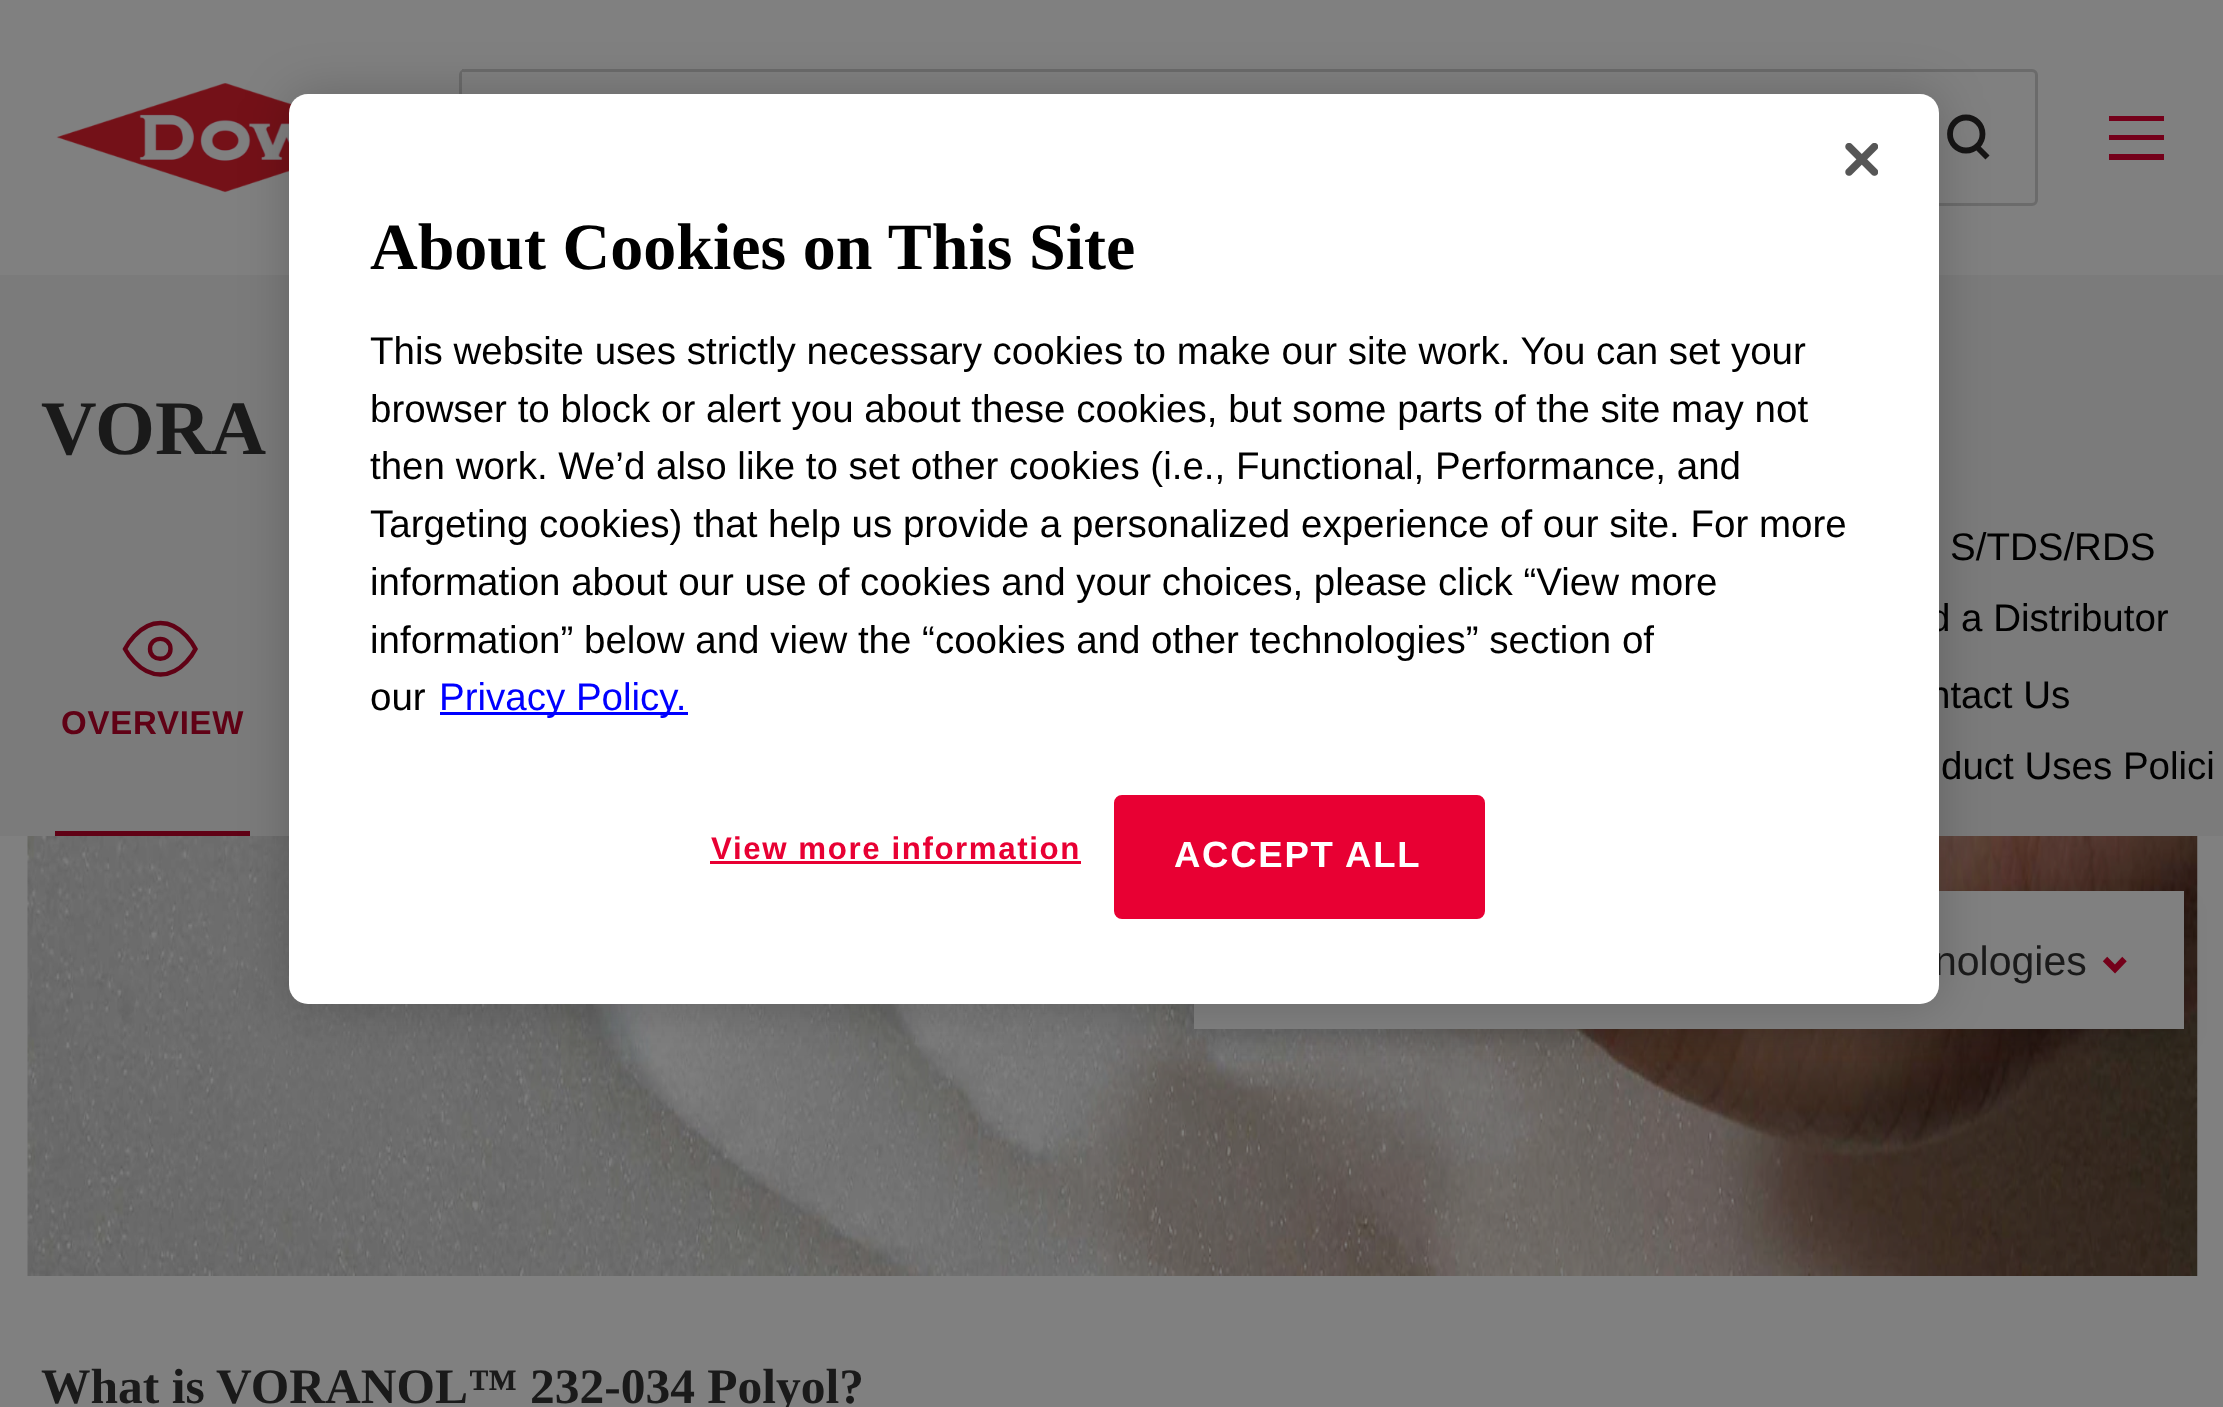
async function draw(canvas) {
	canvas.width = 2223;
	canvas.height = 1407;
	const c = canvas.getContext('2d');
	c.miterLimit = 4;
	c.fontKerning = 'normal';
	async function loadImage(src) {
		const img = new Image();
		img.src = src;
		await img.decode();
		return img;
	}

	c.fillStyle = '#808080';
	c.fillRect(0, 0, 2223, 1407);
	c.drawImage(await loadImage('img2.png'), 56, 83, 236, 110);
	c.beginPath();
	c.roundRect(460.5, 70.5, 1576, 134, 4.5);
	c.strokeStyle = '#6b6b6b';
	c.lineWidth = 3;
	c.stroke();
	c.fillRect(462, 72, 2, 2);
	c.fillStyle = '#6b6b6b';
	c.fillRect(462, 69, 2, 1);
	c.beginPath();
	c.moveTo(1966, 150.5);
	c.bezierCurveTo(1975.5, 150.5, 1982.5, 143, 1982.5, 134);
	c.bezierCurveTo(1982.5, 125, 1975.5, 117.5, 1966, 117.5);
	c.bezierCurveTo(1957, 117.5, 1950, 125, 1950, 134);
	c.bezierCurveTo(1950, 143, 1957, 150.5, 1966, 150.5);
	c.closePath();
	c.moveTo(1976.5, 146.5);
	c.lineTo(1987.5, 157.5);
	c.strokeStyle = '#161515';
	c.lineWidth = 5.8;
	c.stroke();
	c.fillStyle = '#7b7b7b';
	c.fillRect(0, 275, 2223, 561);
	c.fillStyle = '#600115';
	c.fillRect(55, 831, 195, 5);
	c.drawImage(await loadImage('img3.png'), 27, 836, 2171, 440);
	c.fillStyle = '#00000029';
	c.filter = 'blur(11px)';
	c.beginPath();
	c.roundRect(1194, 902, 990, 138, 8);
	c.fill();
	c.filter = 'none';
	c.fillStyle = '#808080';
	c.fillRect(1194, 1004, 489, 25);
	c.fillRect(1683, 891, 501, 138);
	c.fillStyle = '#00000033';
	c.filter = 'blur(25px)';
	c.beginPath();
	c.roundRect(289, 94, 1650, 910, 19);
	c.fill();
	c.filter = 'none';
	c.font = '38.5px Liberation Sans';
	c.fillStyle = '#000';
	c.fillText('d a Distributor', 1929, 631);
	c.fillText('ntact Us', 1929, 708);
	c.font = '41px Liberation Sans';
	c.fillStyle = '#1a1a1a';
	c.fillText('nologies', 1934, 975);
	c.fillStyle = '#fff';
	c.beginPath();
	c.roundRect(289, 94, 1650, 910, 19);
	c.fill();
	c.drawImage(await loadImage('img1.png'), 1845, 143, 33, 33);
	c.font = 'bold 66px Liberation Serif';
	c.fillStyle = '#000';
	c.fillText('About Cookies on This Site', 370, 269);
	c.font = '38.5px Liberation Sans';
	for (const [text, x, y] of [
		['This website uses strictly necessary cookies to make our site work. You can set your', 370, 364],
		['browser to block or alert you about these cookies, but some parts of the site may not', 370, 422],
		['then work. We’d also like to set other cookies (i.e., Functional, Performance, and', 370, 479],
		['Targeting cookies) that help us provide a personalized experience of our site. For more', 370, 537],
		['information about our use of cookies and your choices, please click “View more', 370, 595],
		['information” below and view the “cookies and other technologies” section of', 370, 653],
		['our', 370, 710],
	]) {
		c.fillText(text, x, y);
	}
	c.fillStyle = '#00f';
	c.fillRect(440, 712, 248, 3);
	c.fillText('Privacy Policy.', 439, 710);
	c.letterSpacing = '1.6px';
	c.font = 'bold 31.25px Liberation Sans';
	c.fillStyle = '#e80033';
	c.fillText('View more information', 711, 859);
	c.fillRect(710, 861, 371, 3);
	c.beginPath();
	c.roundRect(1115.5, 796.5, 368, 121, 6.5);
	c.fill();
	c.strokeStyle = '#e80033';
	c.lineWidth = 3;
	c.stroke();
	c.letterSpacing = '1.75px';
	c.font = 'bold 36.5px Liberation Sans';
	c.fillStyle = '#fff';
	c.fillText('ACCEPT ALL', 1174, 867);
	c.fillStyle = '#74001a';
	c.beginPath();
	c.moveTo(2164, 121);
	c.lineTo(2109, 121);
	c.lineTo(2109, 116);
	c.lineTo(2164, 116);
	c.closePath();
	c.moveTo(2164, 140);
	c.lineTo(2109, 140);
	c.lineTo(2109, 135);
	c.lineTo(2164, 135);
	c.closePath();
	c.moveTo(2109, 160);
	c.lineTo(2164, 160);
	c.lineTo(2164, 154);
	c.lineTo(2109, 154);
	c.closePath();
	c.fill('evenodd');
	c.letterSpacing = '0px';
	c.font = 'bold 77px Liberation Serif';
	c.fillStyle = '#1a1a1a';
	c.fillText('VORA', 41, 454);
	c.beginPath();
	c.moveTo(125, 649);
	c.bezierCurveTo(125, 649, 138, 623, 160.5, 623);
	c.bezierCurveTo(183, 623, 195.5, 649, 195.5, 649);
	c.bezierCurveTo(195.5, 649, 183, 674.5, 160.5, 674.5);
	c.bezierCurveTo(138, 674.5, 125, 649, 125, 649);
	c.closePath();
	c.strokeStyle = '#600115';
	c.lineWidth = 4.4;
	c.stroke();
	c.beginPath();
	c.moveTo(170.5, 649);
	c.bezierCurveTo(170.5, 662, 150, 662, 150, 649);
	c.bezierCurveTo(150, 635.5, 170.5, 635.5, 170.5, 649);
	c.closePath();
	c.stroke();
	c.letterSpacing = '0.75px';
	c.font = 'bold 33px Liberation Sans';
	c.fillStyle = '#600115';
	c.fillText('OVERVIEW', 61, 734);
	c.letterSpacing = '0px';
	c.font = '38.5px Liberation Sans';
	c.fillStyle = '#000';
	c.fillText('S/TDS/RDS', 1950, 560);
	c.fillText('duct Uses Polici', 1941, 779);
	c.beginPath();
	c.moveTo(2124.5, 959);
	c.lineTo(2115, 969);
	c.lineTo(2105, 959);
	c.strokeStyle = '#74001a';
	c.lineWidth = 6.2;
	c.stroke();
	c.font = 'bold 49.5px Liberation Serif';
	c.fillStyle = '#1a1a1a';
	c.fillText('What is', 41, 1403);
	c.fillText('VORANOL™ 232-034 Polyol?', 216, 1403);
}

draw(document.querySelector('canvas'));
